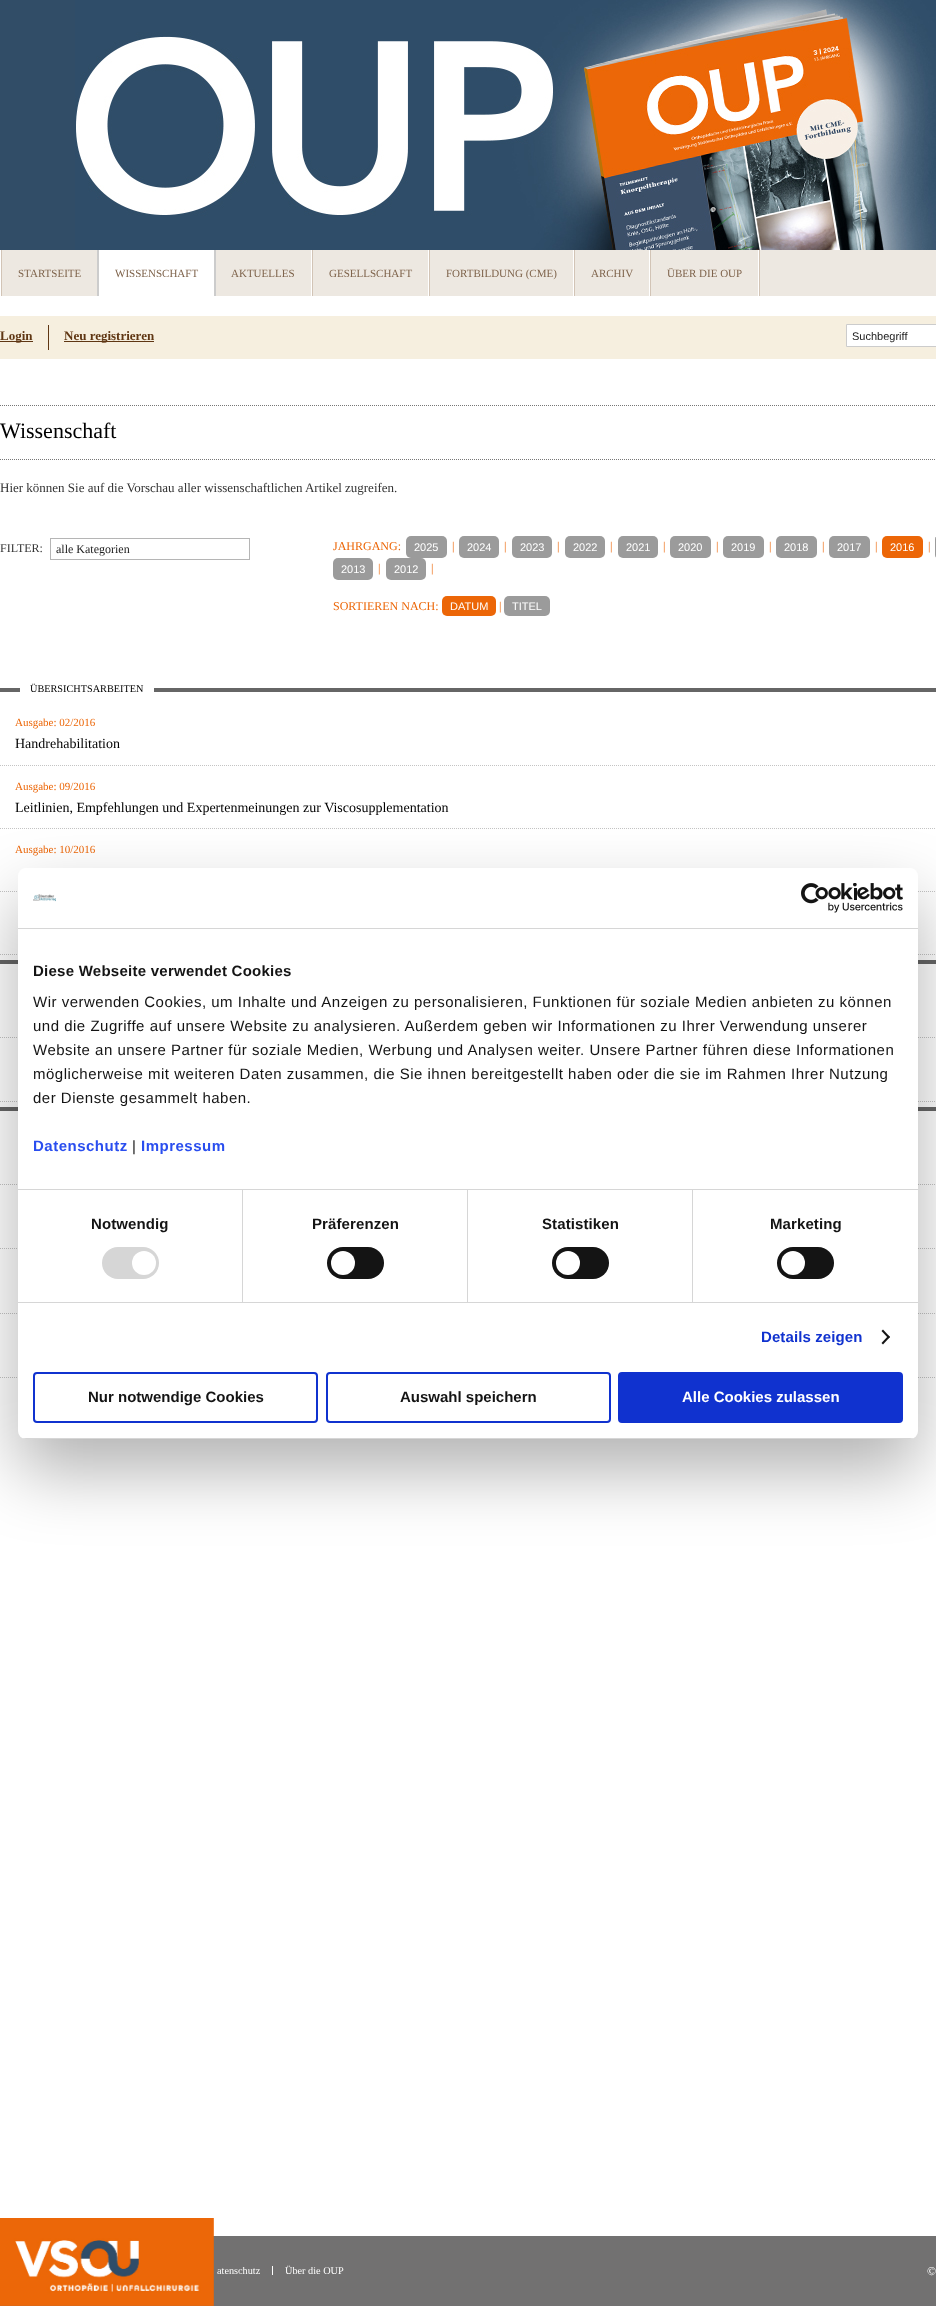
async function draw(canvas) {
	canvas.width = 936;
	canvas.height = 2306;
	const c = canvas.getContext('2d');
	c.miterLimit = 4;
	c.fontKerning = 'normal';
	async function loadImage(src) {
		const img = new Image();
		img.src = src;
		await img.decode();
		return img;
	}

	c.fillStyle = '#fff';
	c.fillRect(0, 0, 936, 2306);
	c.fillStyle = '#314d67';
	c.fillRect(0, 0, 75, 250);
	c.drawImage(await loadImage('img1.png'), 75, 0, 861, 250);
	c.fillStyle = '#ede8e1';
	c.fillRect(2, 250, 934, 46);
	c.fillStyle = '#d2c4b6';
	c.fillRect(1, 250, 1, 46);
	c.font = '11px Liberation Serif';
	c.fillStyle = '#7f644c';
	c.fillText('STARTSEITE', 18, 277);
	c.fillStyle = '#fff';
	c.fillRect(99, 250, 115, 46);
	c.save();
	c.beginPath();
	c.rect(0, 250, 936, 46);
	c.clip();
	c.beginPath();
	c.moveTo(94, 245);
	c.lineTo(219, 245);
	c.lineTo(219, 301);
	c.lineTo(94, 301);
	c.closePath();
	c.moveTo(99, 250);
	c.lineTo(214, 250);
	c.lineTo(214, 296);
	c.lineTo(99, 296);
	c.closePath();
	c.clip('evenodd');
	c.fillStyle = '#ccc';
	c.filter = 'blur(0.5px)';
	c.beginPath();
	c.rect(97, 248, 119, 50);
	c.fill();
	c.filter = 'none';
	c.restore();
	c.fillStyle = '#7f644c';
	c.fillText('WISSENSCHAFT', 115, 277);
	c.fillStyle = '#d2c4b6';
	c.fillRect(312, 250, 1, 46);
	c.fillStyle = '#fff';
	c.fillRect(311, 250, 1, 46);
	c.fillStyle = '#7f644c';
	c.fillText('AKTUELLES', 231, 277);
	c.fillStyle = '#d2c4b6';
	c.fillRect(429, 250, 1, 46);
	c.fillStyle = '#fff';
	c.fillRect(428, 250, 1, 46);
	c.fillStyle = '#7f644c';
	c.fillText('GESELLSCHAFT', 329, 277);
	c.fillStyle = '#d2c4b6';
	c.fillRect(574, 250, 1, 46);
	c.fillStyle = '#fff';
	c.fillRect(573, 250, 1, 46);
	c.fillStyle = '#7f644c';
	c.fillText('FORTBILDUNG (CME)', 446, 277);
	c.fillStyle = '#d2c4b6';
	c.fillRect(650, 250, 1, 46);
	c.fillStyle = '#fff';
	c.fillRect(649, 250, 1, 46);
	c.fillStyle = '#7f644c';
	c.fillText('ARCHIV', 591, 277);
	c.fillStyle = '#d2c4b6';
	c.fillRect(759, 250, 1, 46);
	c.fillStyle = '#fff';
	c.fillRect(758, 250, 1, 46);
	c.fillStyle = '#7f644c';
	c.fillText('ÜBER DIE OUP', 667, 277);
	c.fillStyle = '#f6efdf';
	c.fillRect(0, 316, 936, 43);
	c.fillStyle = '#5f3613';
	c.fillRect(0, 341, 33, 1);
	c.font = 'bold 13px Liberation Serif';
	c.fillText('Login', 0, 340);
	c.fillRect(48, 325, 1, 25);
	c.fillRect(64, 341, 90, 1);
	c.fillText('Neu registrieren', 64, 340);
	c.fillStyle = '#fff';
	c.beginPath();
	c.rect(846.5, 324.5, 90, 22);
	c.fill();
	c.strokeStyle = '#ccc';
	c.stroke();
	c.font = '11px Liberation Sans';
	c.fillStyle = '#1a1a1a';
	c.fillText('Suchbegriff', 852, 340);
	c.beginPath();
	c.moveTo(0, 405.5);
	c.lineTo(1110, 405.5);
	c.strokeStyle = '#767676';
	c.setLineDash([1, 1]);
	c.stroke();
	c.beginPath();
	c.moveTo(0, 459.5);
	c.lineTo(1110, 459.5);
	c.stroke();
	c.font = '22px Liberation Serif';
	c.fillStyle = '#000';
	c.fillText('Wissenschaft', 0, 438);
	c.font = '13px Liberation Serif';
	c.fillStyle = '#333';
	c.fillText('Hier können Sie auf die Vorschau aller wissenschaftlichen Artikel zugreifen.', 0, 492);
	c.font = '12px Liberation Serif';
	c.fillText('FILTER:', 0, 552);
	c.strokeStyle = '#b5b5b5';
	c.setLineDash([]);
	c.strokeRect(50.5, 538.5, 199, 21);
	c.fillStyle = '#1a1a1a';
	c.fillText('alle Kategorien', 56, 553);
	c.fillStyle = '#ec6607';
	c.fillText('JAHRGANG:', 333, 550);
	c.fillStyle = '#9b9b9b';
	c.beginPath();
	c.roundRect(406, 536, 41, 22, 5);
	c.fill();
	c.font = '11px Liberation Sans';
	c.fillStyle = '#fff';
	c.fillText('2025', 414, 551);
	c.font = '12px Liberation Serif';
	c.fillStyle = '#ec6607';
	c.fillText('|', 452, 550);
	c.fillStyle = '#9b9b9b';
	c.beginPath();
	c.roundRect(459, 536, 40, 22, 5);
	c.fill();
	c.font = '11px Liberation Sans';
	c.fillStyle = '#fff';
	c.fillText('2024', 467, 551);
	c.font = '12px Liberation Serif';
	c.fillStyle = '#ec6607';
	c.fillText('|', 504, 550);
	c.fillStyle = '#9b9b9b';
	c.beginPath();
	c.roundRect(512, 536, 40, 22, 5);
	c.fill();
	c.font = '11px Liberation Sans';
	c.fillStyle = '#fff';
	c.fillText('2023', 520, 551);
	c.font = '12px Liberation Serif';
	c.fillStyle = '#ec6607';
	c.fillText('|', 557, 550);
	c.fillStyle = '#9b9b9b';
	c.beginPath();
	c.roundRect(565, 536, 40, 22, 5);
	c.fill();
	c.font = '11px Liberation Sans';
	c.fillStyle = '#fff';
	c.fillText('2022', 573, 551);
	c.font = '12px Liberation Serif';
	c.fillStyle = '#ec6607';
	c.fillText('|', 610, 550);
	c.fillStyle = '#9b9b9b';
	c.beginPath();
	c.roundRect(618, 536, 40, 22, 5);
	c.fill();
	c.font = '11px Liberation Sans';
	c.fillStyle = '#fff';
	c.fillText('2021', 626, 551);
	c.font = '12px Liberation Serif';
	c.fillStyle = '#ec6607';
	c.fillText('|', 663, 550);
	c.fillStyle = '#9b9b9b';
	c.beginPath();
	c.roundRect(670, 536, 41, 22, 5);
	c.fill();
	c.font = '11px Liberation Sans';
	c.fillStyle = '#fff';
	c.fillText('2020', 678, 551);
	c.font = '12px Liberation Serif';
	c.fillStyle = '#ec6607';
	c.fillText('|', 716, 550);
	c.fillStyle = '#9b9b9b';
	c.beginPath();
	c.roundRect(723, 536, 41, 22, 5);
	c.fill();
	c.font = '11px Liberation Sans';
	c.fillStyle = '#fff';
	c.fillText('2019', 731, 551);
	c.font = '12px Liberation Serif';
	c.fillStyle = '#ec6607';
	c.fillText('|', 769, 550);
	c.fillStyle = '#9b9b9b';
	c.beginPath();
	c.roundRect(776, 536, 41, 22, 5);
	c.fill();
	c.font = '11px Liberation Sans';
	c.fillStyle = '#fff';
	c.fillText('2018', 784, 551);
	c.font = '12px Liberation Serif';
	c.fillStyle = '#ec6607';
	c.fillText('|', 822, 550);
	c.fillStyle = '#9b9b9b';
	c.beginPath();
	c.roundRect(829, 536, 41, 22, 5);
	c.fill();
	c.font = '11px Liberation Sans';
	c.fillStyle = '#fff';
	c.fillText('2017', 837, 551);
	c.font = '12px Liberation Serif';
	c.fillStyle = '#ec6607';
	c.fillText('|', 875, 550);
	c.beginPath();
	c.roundRect(882, 536, 41, 22, 5);
	c.fill();
	c.font = '11px Liberation Sans';
	c.fillStyle = '#fff';
	c.fillText('2016', 890, 551);
	c.font = '12px Liberation Serif';
	c.fillStyle = '#ec6607';
	c.fillText('|', 928, 550);
	c.fillStyle = '#9b9b9b';
	c.beginPath();
	c.roundRect(935, 536, 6, 22, 5);
	c.fill();
	c.beginPath();
	c.roundRect(333, 558, 40, 22, 5);
	c.fill();
	c.font = '11px Liberation Sans';
	c.fillStyle = '#fff';
	c.fillText('2013', 341, 573);
	c.font = '12px Liberation Serif';
	c.fillStyle = '#ec6607';
	c.fillText('|', 378, 572);
	c.fillStyle = '#9b9b9b';
	c.beginPath();
	c.roundRect(386, 558, 40, 22, 5);
	c.fill();
	c.font = '11px Liberation Sans';
	c.fillStyle = '#fff';
	c.fillText('2012', 394, 573);
	c.font = '12px Liberation Serif';
	c.fillStyle = '#ec6607';
	c.fillText('|', 431, 572);
	c.fillText('SORTIEREN NACH:', 333, 610);
	c.beginPath();
	c.roundRect(442, 596, 54, 20, 5);
	c.fill();
	c.font = '11px Liberation Sans';
	c.fillStyle = '#fff';
	c.fillText('DATUM', 450, 610);
	c.font = '12px Liberation Serif';
	c.fillStyle = '#ec6607';
	c.fillText('|', 499, 610);
	c.fillStyle = '#9b9b9b';
	c.beginPath();
	c.roundRect(504, 596, 46, 20, 5);
	c.fill();
	c.font = '11px Liberation Sans';
	c.fillStyle = '#fff';
	c.fillText('TITEL', 512, 610);
	c.fillStyle = '#666';
	c.fillRect(0, 688, 936, 4);
	c.fillStyle = '#fff';
	c.fillRect(20, 688, 134, 4);
	c.font = '10.25px Liberation Serif';
	c.fillStyle = '#000';
	c.fillText('ÜBERSICHTSARBEITEN', 30, 692);
	c.beginPath();
	c.moveTo(0, 765.5);
	c.lineTo(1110, 765.5);
	c.strokeStyle = '#c4c4c4';
	c.setLineDash([1, 1]);
	c.stroke();
	c.font = '11px Liberation Serif';
	c.fillStyle = '#ec6607';
	c.fillText('Ausgabe: 02/2016', 15, 726);
	c.font = '14px Liberation Serif';
	c.fillStyle = '#000';
	c.fillText('Handrehabilitation', 15, 748);
	c.beginPath();
	c.moveTo(0, 828.5);
	c.lineTo(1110, 828.5);
	c.stroke();
	c.font = '11px Liberation Serif';
	c.fillStyle = '#ec6607';
	c.fillText('Ausgabe: 09/2016', 15, 790);
	c.font = '14px Liberation Serif';
	c.fillStyle = '#000';
	c.fillText('Leitlinien, Empfehlungen und Expertenmeinungen zur Viscosupplementation', 15, 812);
	c.beginPath();
	c.moveTo(0, 891.5);
	c.lineTo(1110, 891.5);
	c.stroke();
	c.font = '11px Liberation Serif';
	c.fillStyle = '#ec6607';
	c.fillText('Ausgabe: 10/2016', 15, 853);
	c.beginPath();
	c.moveTo(0, 954.5);
	c.lineTo(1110, 954.5);
	c.stroke();
	c.fillStyle = '#666';
	c.fillRect(0, 960, 936, 4);
	c.beginPath();
	c.moveTo(0, 1037.5);
	c.lineTo(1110, 1037.5);
	c.stroke();
	c.beginPath();
	c.moveTo(0, 1101.5);
	c.lineTo(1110, 1101.5);
	c.stroke();
	c.fillRect(0, 1107, 936, 4);
	c.beginPath();
	c.moveTo(0, 1184.5);
	c.lineTo(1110, 1184.5);
	c.stroke();
	c.beginPath();
	c.moveTo(0, 1248.5);
	c.lineTo(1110, 1248.5);
	c.stroke();
	c.beginPath();
	c.moveTo(0, 1313.5);
	c.lineTo(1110, 1313.5);
	c.stroke();
	c.beginPath();
	c.moveTo(0, 1377.5);
	c.lineTo(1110, 1377.5);
	c.stroke();
	c.fillStyle = '#727171';
	c.fillRect(0, 2236, 936, 70);
	c.drawImage(await loadImage('img2.png'), 0, 2218, 214, 88);
	c.font = '10.25px Liberation Serif';
	c.fillStyle = '#fff';
	c.fillText('atenschutz', 217, 2274);
	c.fillRect(272, 2266, 1, 9);
	c.fillText('Über die OUP', 285, 2274);
	c.font = '12px Liberation Serif';
	c.fillText('©', 927, 2275);
	c.fillStyle = '#0000004d';
	c.filter = 'blur(34px)';
	c.beginPath();
	c.roundRect(18, 900, 900, 571, 8);
	c.fill();
	c.filter = 'none';
	c.fillStyle = '#fff';
	c.beginPath();
	c.roundRect(18, 868, 900, 571, 8);
	c.fill();
	c.fillStyle = '#d6d6d6';
	c.fillRect(18, 928, 900, 1);
	c.drawImage(await loadImage('img3.png'), 33, 894, 23, 8);
	c.drawImage(await loadImage('img4.png'), 801, 883, 102, 30);
	c.fillRect(18, 1189, 900, 1);
	c.letterSpacing = '0.25px';
	c.font = 'bold 15px Liberation Sans';
	c.fillStyle = '#141414';
	c.fillText('Diese Webseite verwendet Cookies', 33, 976);
	c.letterSpacing = '0.5px';
	c.font = '15px Liberation Sans';
	for (const [text, x, y] of [
		['Wir verwenden Cookies, um Inhalte und Anzeigen zu personalisieren, Funktionen für soziale Medien anbieten zu können', 33, 1007],
		['und die Zugriffe auf unsere Website zu analysieren. Außerdem geben wir Informationen zu Ihrer Verwendung unserer', 33, 1031],
		['Website an unsere Partner für soziale Medien, Werbung und Analysen weiter. Unsere Partner führen diese Informationen', 33, 1055],
		['möglicherweise mit weiteren Daten zusammen, die Sie ihnen bereitgestellt haben oder die sie im Rahmen Ihrer Nutzung', 33, 1079],
		['der Dienste gesammelt haben.', 33, 1103],
	]) {
		c.fillText(text, x, y);
	}
	c.font = 'bold 15px Liberation Sans';
	c.fillStyle = '#2a4eef';
	c.fillText('Datenschutz', 33, 1151);
	c.font = '15px Liberation Sans';
	c.fillStyle = '#141414';
	c.fillText('|', 132, 1151);
	c.font = 'bold 15px Liberation Sans';
	c.fillStyle = '#2a4eef';
	c.fillText('Impressum', 141, 1151);
	c.fillStyle = '#d6d6d6';
	c.fillRect(18, 1302, 900, 1);
	c.fillRect(242, 1190, 1, 112);
	c.letterSpacing = '0.1px';
	c.fillStyle = '#141414';
	c.fillText('Notwendig', 91, 1229);
	c.fillStyle = '#d6d6d6';
	c.beginPath();
	c.roundRect(102, 1247, 57, 32, 16);
	c.fill();
	c.fillStyle = '#fff';
	c.beginPath();
	c.arc(144, 1263, 12, 0, 2 * Math.PI);
	c.fill();
	c.fillStyle = '#d6d6d6';
	c.fillRect(467, 1190, 1, 112);
	c.fillStyle = '#141414';
	c.fillText('Präferenzen', 312, 1229);
	c.beginPath();
	c.roundRect(327, 1247, 57, 32, 16);
	c.fill();
	c.fillStyle = '#fff';
	c.beginPath();
	c.arc(343, 1263, 12, 0, 2 * Math.PI);
	c.fill();
	c.fillStyle = '#d6d6d6';
	c.fillRect(692, 1190, 1, 112);
	c.fillStyle = '#141414';
	c.fillText('Statistiken', 542, 1229);
	c.beginPath();
	c.roundRect(552, 1247, 57, 32, 16);
	c.fill();
	c.fillStyle = '#fff';
	c.beginPath();
	c.arc(568, 1263, 12, 0, 2 * Math.PI);
	c.fill();
	c.fillStyle = '#141414';
	c.fillText('Marketing', 770, 1229);
	c.beginPath();
	c.roundRect(777, 1247, 57, 32, 16);
	c.fill();
	c.fillStyle = '#fff';
	c.beginPath();
	c.arc(793, 1263, 12, 0, 2 * Math.PI);
	c.fill();
	c.fillStyle = '#1032cf';
	c.fillText('Details zeigen', 761, 1342);
	c.fillStyle = '#141414';
	c.beginPath();
	c.moveTo(883, 1329.5);
	c.lineTo(890, 1337);
	c.lineTo(888.5, 1338.5);
	c.lineTo(881.5, 1331);
	c.closePath();
	c.fill();
	c.beginPath();
	c.moveTo(888.5, 1335.5);
	c.lineTo(890, 1337);
	c.lineTo(883, 1344.5);
	c.lineTo(881.5, 1343);
	c.closePath();
	c.fill();
	c.save();
	c.beginPath();
	c.roundRect(18, 868, 900, 571, 8);
	c.clip();
	c.fillStyle = '#d6d6d6';
	c.fillRect(18, 1438, 900, 1);
	c.restore();
	c.beginPath();
	c.roundRect(34, 1373, 283, 49, 3);
	c.strokeStyle = '#1032cf';
	c.lineWidth = 2;
	c.setLineDash([]);
	c.stroke();
	c.letterSpacing = '0px';
	c.fillText('Nur notwendige Cookies', 88, 1402);
	c.beginPath();
	c.roundRect(327, 1373, 283, 49, 3);
	c.stroke();
	c.fillText('Auswahl speichern', 400, 1402);
	c.fillStyle = '#1032cf';
	c.beginPath();
	c.roundRect(619, 1373, 283, 49, 3);
	c.fill();
	c.stroke();
	c.fillStyle = '#fff';
	c.fillText('Alle Cookies zulassen', 682, 1402);
}

draw(document.querySelector('canvas'));
